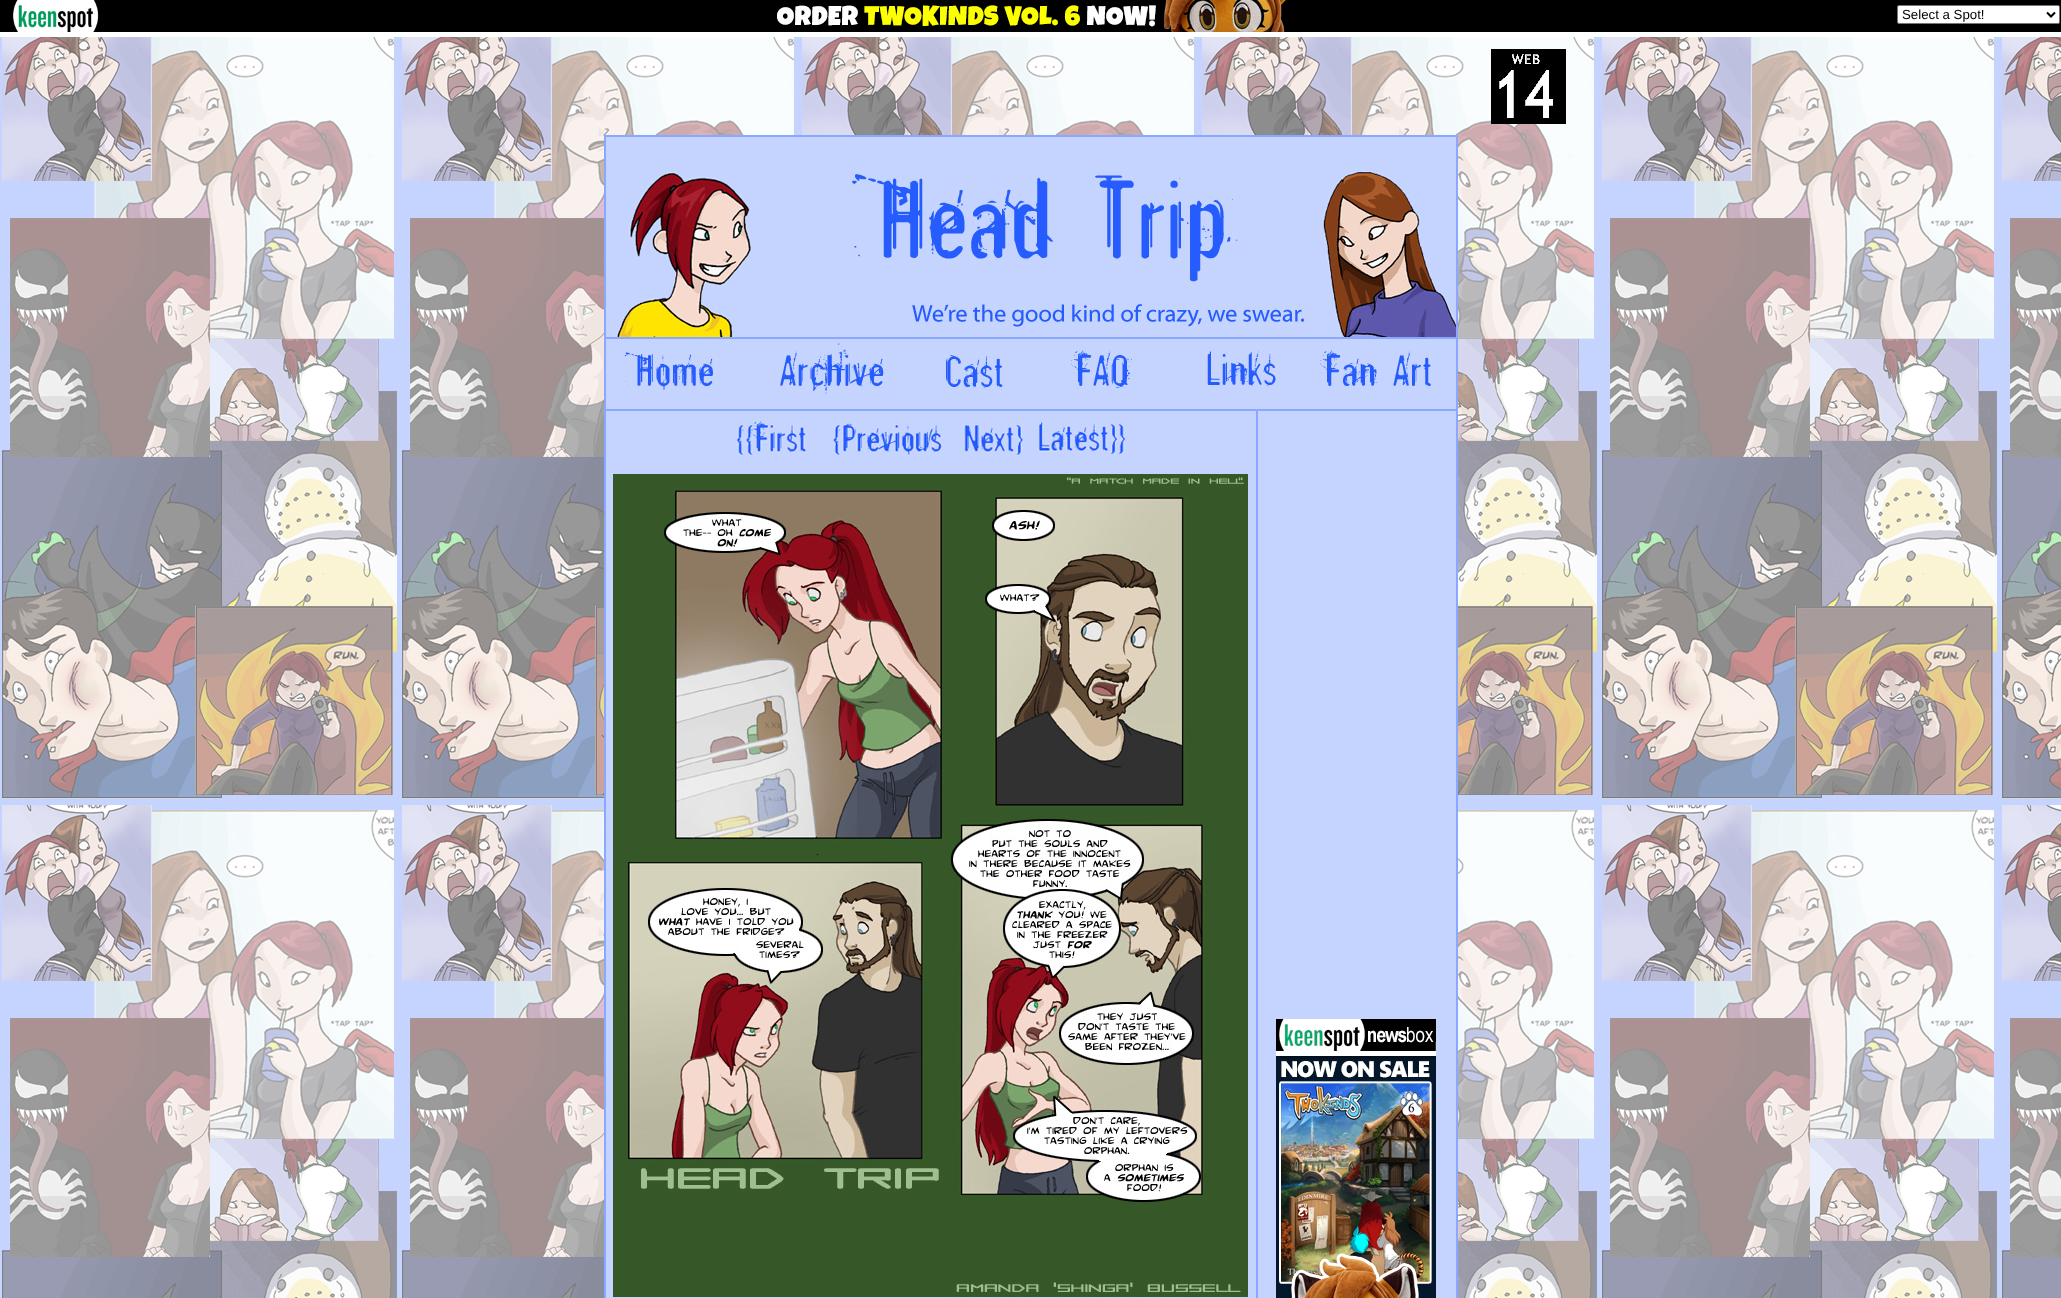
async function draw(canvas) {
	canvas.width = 2061;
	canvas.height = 1298;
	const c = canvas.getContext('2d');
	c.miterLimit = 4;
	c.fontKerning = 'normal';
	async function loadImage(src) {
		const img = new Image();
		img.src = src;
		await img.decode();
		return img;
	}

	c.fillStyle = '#fff';
	c.fillRect(0, 0, 2061, 1298);
	c.drawImage(await loadImage('img1.png'), 0, 37, 2061, 1261);
	c.fillStyle = '#000';
	c.fillRect(0, 0, 2061, 32);
	c.drawImage(await loadImage('img2.png'), 13, 0, 86, 32);
	c.drawImage(await loadImage('img3.png'), 777, 0, 509, 32);
	c.fillStyle = '#fff';
	c.beginPath();
	c.roundRect(1897.5, 5.5, 162, 18, 1.5);
	c.fill();
	c.strokeStyle = '#767676';
	c.stroke();
	c.beginPath();
	c.moveTo(2047, 12.5);
	c.lineTo(2051, 16.5);
	c.lineTo(2055, 12.5);
	c.strokeStyle = '#000';
	c.lineWidth = 2;
	c.stroke();
	c.font = '13.25px Liberation Sans';
	c.fillStyle = '#000';
	c.fillText('Select a Spot!', 1902, 19);
	c.drawImage(await loadImage('img4.png'), 1491, 49, 75, 75);
	c.strokeStyle = '#8aa8ff';
	c.strokeRect(605, 136, 852, 202);
	c.drawImage(await loadImage('img5.png'), 606, 137, 850, 200);
	for (const [x, y, w, h, color] of [
		[1456, 339, 2, 959, '#8aa8ff'],
		[604, 409, 854, 2, '#8aa8ff'],
		[604, 339, 2, 959, '#8aa8ff'],
	]) {
		c.fillStyle = color;
		c.fillRect(x, y, w, h);
	}
	c.drawImage(await loadImage('img6.png'), 606, 339, 850, 70);
	c.fillStyle = '#c5d4ff';
	c.fillRect(606, 411, 650, 887);
	c.fillStyle = '#8aa8ff';
	c.fillRect(1256, 411, 2, 887);
	c.drawImage(await loadImage('img7.png'), 736, 421, 71, 35);
	c.drawImage(await loadImage('img8.png'), 833, 423, 110, 33);
	c.drawImage(await loadImage('img9.png'), 963, 424, 61, 32);
	c.drawImage(await loadImage('img10.png'), 1037, 422, 88, 33);
	c.drawImage(await loadImage('img11.png'), 613, 474, 635, 823);
	c.fillStyle = '#c5d4ff';
	c.fillRect(1258, 411, 198, 887);
	c.drawImage(await loadImage('img12.png'), 1276, 1019, 160, 279);
}

draw(document.querySelector('canvas'));
